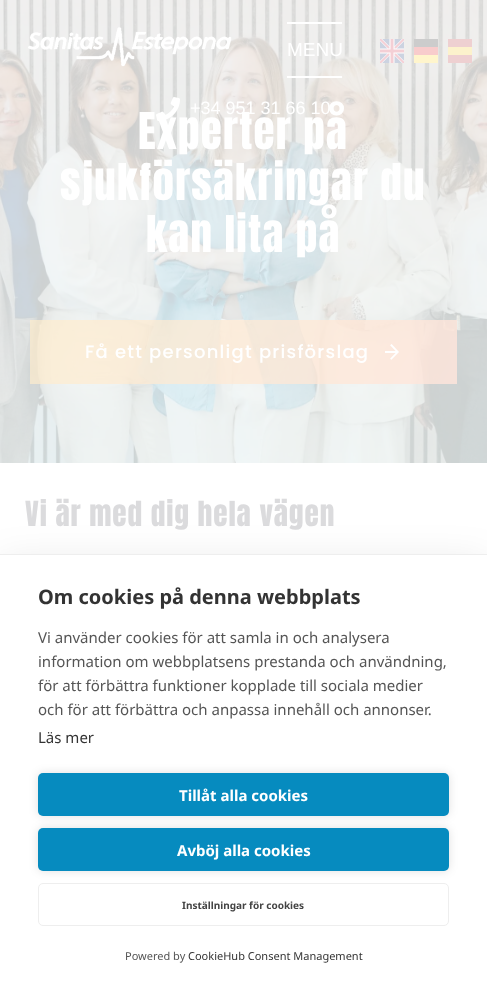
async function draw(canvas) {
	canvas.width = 487;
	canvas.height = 986;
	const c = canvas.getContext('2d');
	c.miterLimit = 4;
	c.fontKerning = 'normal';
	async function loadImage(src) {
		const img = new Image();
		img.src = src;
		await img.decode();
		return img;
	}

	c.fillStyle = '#fff';
	c.fillRect(0, 0, 487, 986);
	c.drawImage(await loadImage('img4.png'), 0, 0, 487, 463);
	c.drawImage(await loadImage('img1.png'), 28, 27, 204, 40);
	c.fillRect(287, 22, 55, 2);
	c.fillRect(287, 76, 55, 2);
	c.font = '19px Liberation Sans';
	c.fillText('MENU', 287, 56);
	c.letterSpacing = '1.25px';
	c.font = '43px Anton';
	c.fillText('Experter på', 138, 149);
	c.drawImage(await loadImage('img2.png'), 156, 97, 24, 24);
	c.letterSpacing = '0px';
	c.font = '18px Liberation Sans';
	c.fillText('+34 951 31 66 10', 190, 114);
	c.drawImage(await loadImage('img3.png'), 380, 39, 24, 24);
	for (const [x, y, w, h, color] of [
		[414, 39, 24, 8, '#ccc'],
		[448, 39, 24, 8, '#eed0d1'],
		[414, 47, 24, 8, '#f8cccc'],
		[448, 47, 24, 8, '#fcf2cc'],
		[414, 55, 24, 8, '#fff5cc'],
		[448, 55, 24, 8, '#eed0d1'],
	]) {
		c.fillStyle = color;
		c.fillRect(x, y, w, h);
	}
	c.letterSpacing = '1.25px';
	c.font = '43px Anton';
	c.fillStyle = '#fff';
	c.fillText('sjukförsäkringar du', 60, 200);
	c.fillText('kan lita på', 146, 252);
	c.font = '500 18px Poppins';
	c.fillText('Få ett personligt prisförslag', 85, 358);
	c.drawImage(await loadImage('img5.png'), 385, 344, 14, 16);
	c.letterSpacing = '0.9px';
	c.font = '29.25px Anton';
	c.fillStyle = '#dbdbdd';
	c.fillText('Vi är med dig hela vägen', 25, 526);
	c.fillStyle = '#0000001a';
	c.filter = 'blur(20px)';
	c.beginPath();
	c.rect(0, 564, 487, 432);
	c.fill();
	c.filter = 'none';
	c.fillStyle = '#fff';
	c.fillRect(0, 555, 487, 431);
	c.fillStyle = '#eee';
	c.fillRect(0, 554, 487, 1);
	c.letterSpacing = '0px';
	c.font = 'bold 20px Noto Sans';
	c.fillStyle = '#333';
	c.fillText('Om cookies på denna webbplats', 38, 604);
	c.font = '15px Noto Sans';
	c.fillStyle = '#555';
	for (const [text, x, y] of [
		['Vi använder cookies för att samla in och analysera', 38, 643],
		['information om webbplatsens prestanda och användning,', 38, 667],
		['för att förbättra funktioner kopplade till sociala medier', 38, 691],
		['och för att förbättra och anpassa innehåll och annonser.', 38, 715],
	]) {
		c.fillText(text, x, y);
	}
	c.fillStyle = '#333';
	c.fillText('Läs mer', 38, 743);
	c.fillStyle = '#0000001f';
	c.filter = 'blur(5px)';
	c.beginPath();
	c.roundRect(38, 773, 411, 43, 5);
	c.fill();
	c.filter = 'none';
	c.fillStyle = '#068bbf';
	c.beginPath();
	c.roundRect(38, 773, 411, 43, 5);
	c.fill();
	c.font = 'bold 15px Noto Sans';
	c.fillStyle = '#fff';
	c.fillText('Tillåt alla cookies', 179, 801);
	c.fillStyle = '#0000001f';
	c.filter = 'blur(5px)';
	c.beginPath();
	c.roundRect(38, 828, 411, 43, 5);
	c.fill();
	c.filter = 'none';
	c.fillStyle = '#068bbf';
	c.beginPath();
	c.roundRect(38, 828, 411, 43, 5);
	c.fill();
	c.fillStyle = '#fff';
	c.fillText('Avböj alla cookies', 177, 856);
	c.beginPath();
	c.roundRect(38.5, 883.5, 410, 42, 4.5);
	c.strokeStyle = '#eee';
	c.stroke();
	c.font = 'bold 10px Noto Sans';
	c.fillStyle = '#444';
	c.fillText('Inställningar för cookies', 182, 909);
	c.font = '11px Noto Sans';
	c.fillStyle = '#555';
	c.fillText('Powered by', 125, 960);
	c.fillStyle = '#333';
	c.fillText('CookieHub Consent Management', 188, 960);
}

draw(document.querySelector('canvas'));
